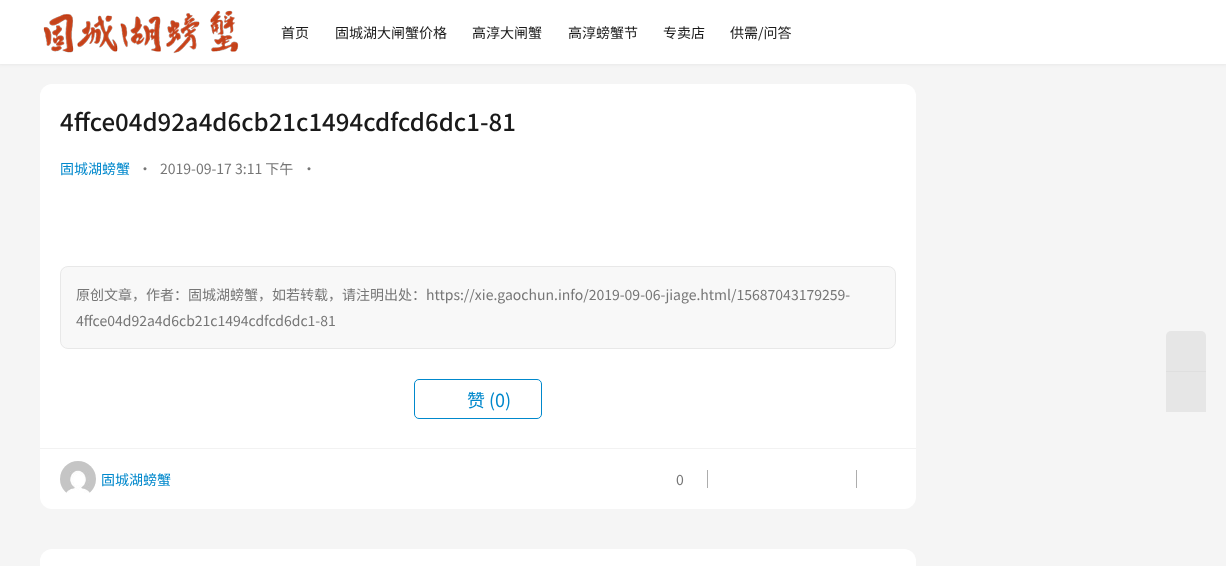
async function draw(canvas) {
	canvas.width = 1226;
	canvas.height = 566;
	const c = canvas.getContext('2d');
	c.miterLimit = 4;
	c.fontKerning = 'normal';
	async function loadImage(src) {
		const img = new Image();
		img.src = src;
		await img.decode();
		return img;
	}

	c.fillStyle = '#f5f5f5';
	c.fillRect(0, 0, 1226, 566);
	c.fillStyle = '#1a1a1a0f';
	c.filter = 'blur(1.5px)';
	c.beginPath();
	c.rect(-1, -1, 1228, 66);
	c.fill();
	c.filter = 'none';
	c.fillStyle = '#fff';
	c.fillRect(0, 0, 1226, 64);
	c.drawImage(await loadImage('img1.png'), 43, 10, 196, 44);
	c.font = '14px Noto Sans CJK SC';
	c.fillStyle = '#1a1a1a';
	for (const [text, x, y] of [
		['首页', 281, 38],
		['固城湖大闸蟹价格', 335, 38],
		['高淳大闸蟹', 472, 38],
		['高淳螃蟹节', 568, 38],
		['专卖店', 663, 38],
		['供需/问答', 730, 38],
	]) {
		c.fillText(text, x, y);
	}
	c.fillStyle = '#fff';
	c.beginPath();
	c.roundRect(40, 84, 876, 425, 12);
	c.fill();
	c.font = '500 24px Noto Sans CJK SC';
	c.fillStyle = '#1a1a1a';
	c.fillText('4ffce04d92a4d6cb21c1494cdfcd6dc1-81', 60, 131);
	c.font = '14px Noto Sans CJK SC';
	c.fillStyle = '#08c';
	c.fillText('固城湖螃蟹', 60, 174);
	c.fillStyle = '#767676';
	for (const [text, x, y] of [
		['•', 138, 174],
		['2019-09-17 3:11 下午', 160, 174],
		['•', 302, 174],
	]) {
		c.fillText(text, x, y);
	}
	c.fillStyle = '#f8f8f8';
	c.beginPath();
	c.roundRect(60, 266, 836, 83, 8);
	c.fill();
	c.beginPath();
	c.roundRect(60.5, 266.5, 835, 82, 7.5);
	c.strokeStyle = '#1a1a1a12';
	c.stroke();
	c.fillStyle = '#767676';
	c.fillText('原创文章，作者：固城湖螃蟹，如若转载，请注明出处：https://xie.gaochun.info/2019-09-06-jiage.html/15687043179259-', 76, 300);
	c.fillText('4ffce04d92a4d6cb21c1494cdfcd6dc1-81', 76, 326);
	c.beginPath();
	c.roundRect(414.5, 379.5, 127, 39, 4.5);
	c.strokeStyle = '#08c';
	c.stroke();
	c.font = '18px Noto Sans CJK SC';
	c.fillStyle = '#08c';
	c.fillText('赞 (0)', 467, 407);
	c.fillStyle = '#f2f2f2';
	c.fillRect(40, 448, 876, 1);
	c.drawImage(await loadImage('img2.png'), 60, 461, 36, 32);
	c.font = '14px Noto Sans CJK SC';
	c.fillStyle = '#08c';
	c.fillText('固城湖螃蟹', 101, 485);
	c.fillStyle = '#767676';
	c.fillText('0', 676, 485);
	c.fillStyle = '#adadad';
	c.fillRect(707, 470, 1, 18);
	c.fillRect(856, 470, 1, 18);
	c.fillStyle = '#fff';
	c.beginPath();
	c.roundRect(40, 549, 876, 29, 12);
	c.fill();
	c.fillStyle = '#e6e6e6';
	c.beginPath();
	c.roundRect(1166, 331, 40, 40, [5, 5, 0, 0]);
	c.fill();
	c.fillStyle = '#dfdfdf';
	c.fillRect(1166, 371, 40, 1);
	c.fillStyle = '#e6e6e6';
	c.fillRect(1166, 372, 40, 40);
}

draw(document.querySelector('canvas'));
